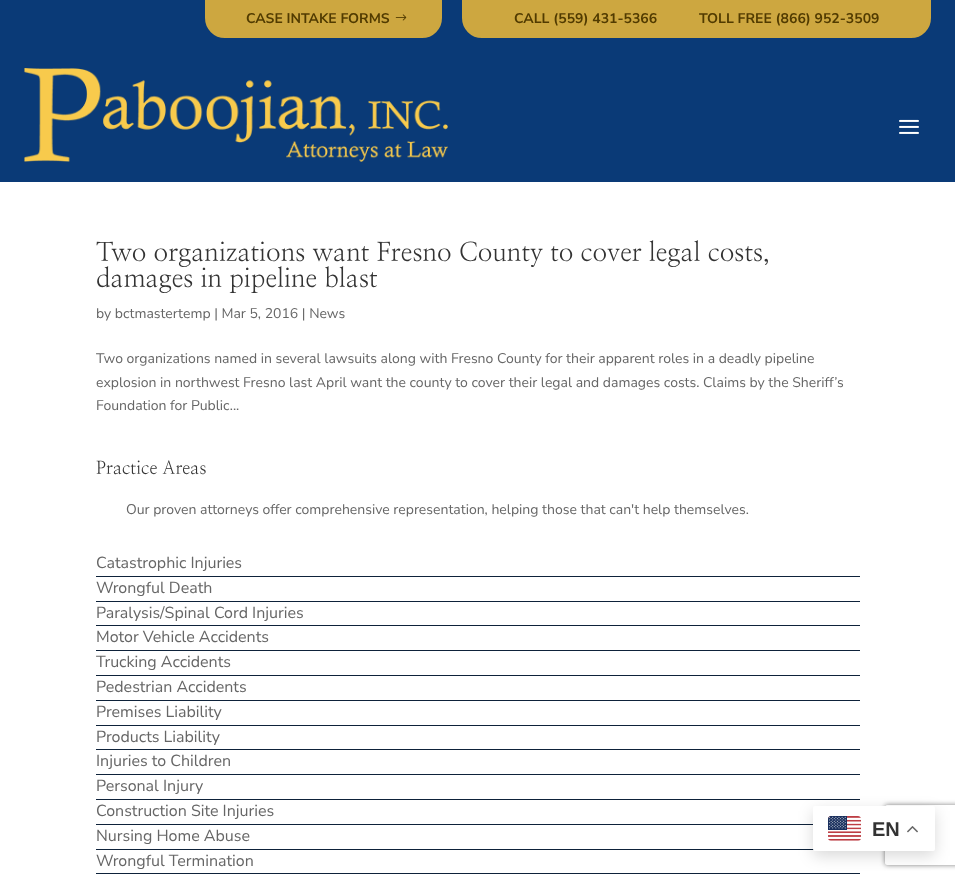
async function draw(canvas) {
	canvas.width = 955;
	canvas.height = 879;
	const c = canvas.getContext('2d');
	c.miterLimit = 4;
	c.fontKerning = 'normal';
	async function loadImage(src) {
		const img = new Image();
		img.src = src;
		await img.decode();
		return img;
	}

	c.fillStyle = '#fff';
	c.fillRect(0, 0, 955, 879);
	c.fillStyle = '#0a3a77';
	c.fillRect(0, 0, 955, 182);
	c.fillStyle = '#cda740';
	c.beginPath();
	c.roundRect(206, 1, 235, 36, [0, 0, 19, 19]);
	c.fill();
	c.strokeStyle = '#cda740';
	c.lineWidth = 2;
	c.stroke();
	c.font = '200 14px "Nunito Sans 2"';
	c.fillStyle = '#513b00';
	c.fillText('CASE INTAKE FORMS', 246, 23);
	c.drawImage(await loadImage('img1.png'), 395, 14, 12, 7);
	c.fillStyle = '#cda740';
	c.beginPath();
	c.roundRect(463, 1, 225, 36, [0, 0, 0, 19]);
	c.fill();
	c.stroke();
	c.fillStyle = '#513b00';
	c.fillText('CALL (559) 431-5366', 514, 23);
	c.fillStyle = '#cda740';
	c.beginPath();
	c.roundRect(684, 1, 246, 36, [0, 0, 19, 0]);
	c.fill();
	c.stroke();
	c.fillStyle = '#513b00';
	c.fillText('TOLL FREE (866) 952-3509', 699, 23);
	c.drawImage(await loadImage('img2.png'), 24, 68, 424, 94);
	c.drawImage(await loadImage('img3.png'), 899, 119, 20, 15);
	c.font = '26px NanumMyeongjo';
	c.fillStyle = '#333';
	c.fillText('Two organizations want Fresno County to cover legal costs,', 96, 261);
	c.fillText('damages in pipeline blast', 96, 287);
	c.font = '200 14px Nunito Sans';
	c.fillStyle = '#666';
	for (const [text, x, y] of [
		['by bctmastertemp | Mar 5, 2016 | News', 96, 318],
		['Two organizations named in several lawsuits along with Fresno County for their apparent roles in a deadly pipeline', 96, 363],
		['explosion in northwest Fresno last April want the county to cover their legal and damages costs. Claims by the Sheriff’s', 96, 387],
		['Foundation for Public...', 96, 410],
	]) {
		c.fillText(text, x, y);
	}
	c.font = '18px NanumMyeongjo';
	c.fillStyle = '#333';
	c.fillText('Practice Areas', 96, 474);
	c.font = '200 14px Nunito Sans';
	c.fillStyle = '#666';
	c.fillText('Our proven attorneys offer comprehensive representation, helping those that can\'t help themselves.', 126, 514);
	c.fillStyle = '#0e223a';
	c.fillRect(96, 576, 764, 1);
	c.font = '200 16px Nunito Sans';
	c.fillStyle = '#666';
	c.fillText('Catastrophic Injuries', 96, 568);
	c.fillStyle = '#0e223a';
	c.fillRect(96, 601, 764, 1);
	c.fillStyle = '#666';
	c.fillText('Wrongful Death', 96, 593);
	c.fillStyle = '#0e223a';
	c.fillRect(96, 625, 764, 1);
	c.fillStyle = '#666';
	c.fillText('Paralysis/Spinal Cord Injuries', 96, 618);
	c.fillStyle = '#0e223a';
	c.fillRect(96, 650, 764, 1);
	c.fillStyle = '#666';
	c.fillText('Motor Vehicle Accidents', 96, 642);
	c.fillStyle = '#0e223a';
	c.fillRect(96, 675, 764, 1);
	c.fillStyle = '#666';
	c.fillText('Trucking Accidents', 96, 667);
	c.fillStyle = '#0e223a';
	c.fillRect(96, 700, 764, 1);
	c.fillStyle = '#666';
	c.fillText('Pedestrian Accidents', 96, 692);
	c.fillStyle = '#0e223a';
	c.fillRect(96, 725, 764, 1);
	c.fillStyle = '#666';
	c.fillText('Premises Liability', 96, 717);
	c.fillStyle = '#0e223a';
	c.fillRect(96, 749, 764, 1);
	c.fillStyle = '#666';
	c.fillText('Products Liability', 96, 742);
	c.fillStyle = '#0e223a';
	c.fillRect(96, 774, 764, 1);
	c.fillStyle = '#666';
	c.fillText('Injuries to Children', 96, 766);
	c.fillStyle = '#0e223a';
	c.fillRect(96, 799, 764, 1);
	c.fillStyle = '#666';
	c.fillText('Personal Injury', 96, 791);
	c.fillStyle = '#0e223a';
	c.fillRect(96, 824, 717, 1);
	c.fillStyle = '#666';
	c.fillText('Construction Site Injuries', 96, 816);
	c.fillStyle = '#0e223a';
	c.fillRect(96, 849, 718, 1);
	c.fillStyle = '#666';
	c.fillText('Nursing Home Abuse', 96, 841);
	c.fillStyle = '#0e223a';
	c.fillRect(96, 873, 764, 1);
	c.fillStyle = '#666';
	c.fillText('Wrongful Termination', 96, 866);
	c.save();
	c.beginPath();
	c.moveTo(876, 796);
	c.lineTo(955, 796);
	c.lineTo(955, 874);
	c.lineTo(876, 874);
	c.closePath();
	c.moveTo(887, 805);
	c.lineTo(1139, 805);
	c.bezierCurveTo(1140, 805, 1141, 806, 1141, 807);
	c.lineTo(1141, 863);
	c.bezierCurveTo(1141, 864, 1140, 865, 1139, 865);
	c.lineTo(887, 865);
	c.bezierCurveTo(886, 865, 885, 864, 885, 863);
	c.lineTo(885, 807);
	c.bezierCurveTo(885, 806, 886, 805, 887, 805);
	c.closePath();
	c.clip('evenodd');
	c.fillStyle = '#808080';
	c.filter = 'blur(2.5px)';
	c.beginPath();
	c.roundRect(885, 805, 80, 60, 2);
	c.fill();
	c.filter = 'none';
	c.restore();
	c.fillStyle = '#00000026';
	c.filter = 'blur(7.5px)';
	c.beginPath();
	c.roundRect(813, 811, 122, 45, 2);
	c.fill();
	c.filter = 'none';
	c.fillStyle = '#fff';
	c.beginPath();
	c.roundRect(813, 806, 122, 45, 2);
	c.fill();
	c.drawImage(await loadImage('img4.png'), 828, 816, 33, 25);
	c.font = 'bold 20px Liberation Sans';
	c.fillStyle = '#333';
	c.fillText('EN', 872, 836);
	c.drawImage(await loadImage('img5.png'), 907, 826, 11, 7);
}

draw(document.querySelector('canvas'));
